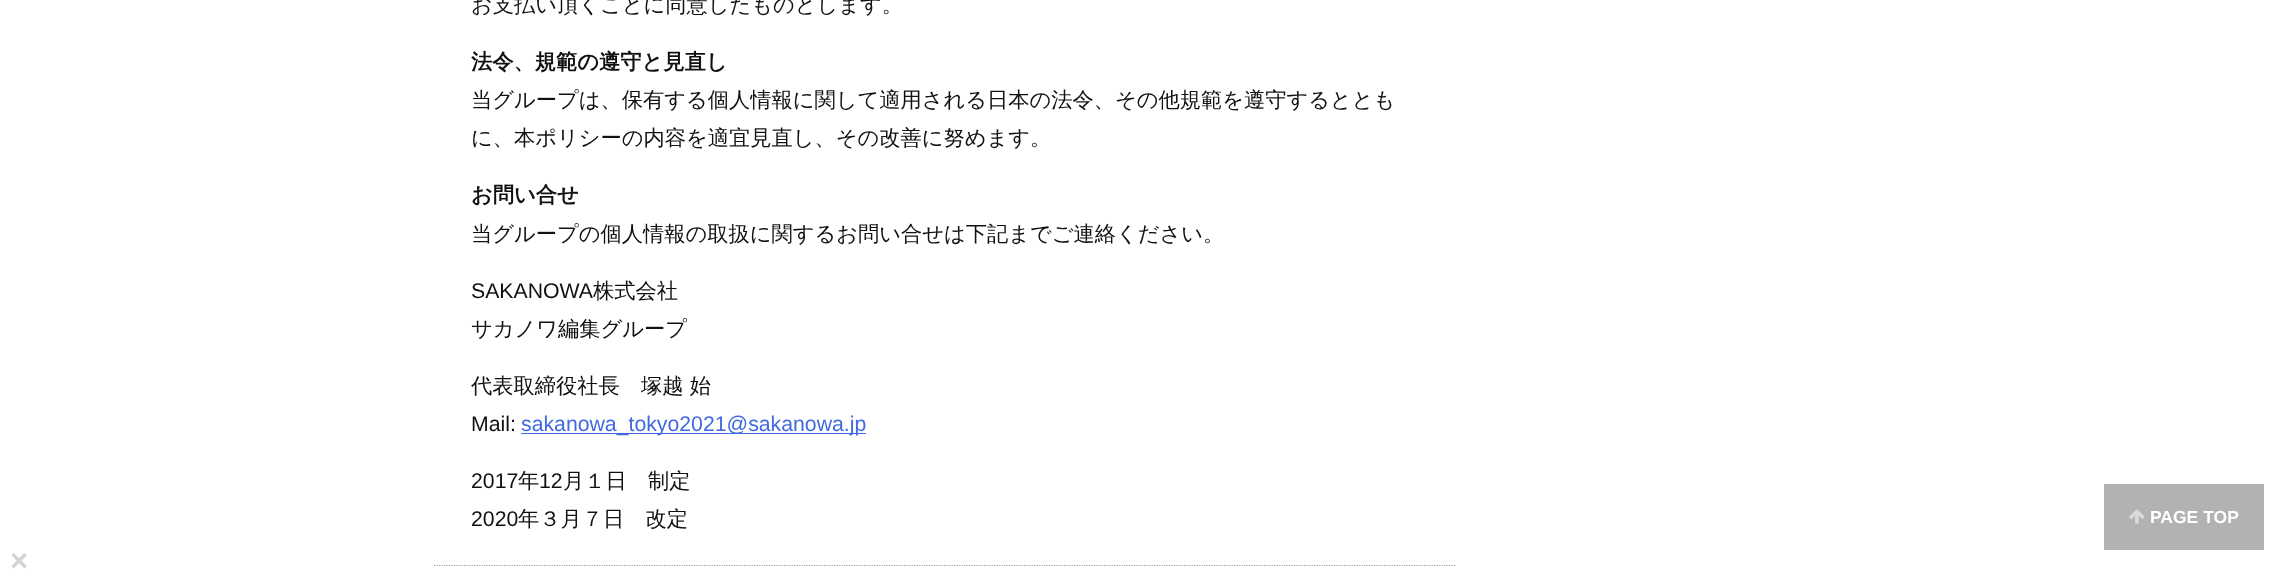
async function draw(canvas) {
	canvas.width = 2288;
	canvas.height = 574;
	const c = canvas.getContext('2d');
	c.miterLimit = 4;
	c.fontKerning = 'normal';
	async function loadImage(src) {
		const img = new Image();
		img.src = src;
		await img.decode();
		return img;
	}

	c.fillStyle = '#fff';
	c.fillRect(0, 0, 2288, 574);
	c.font = '500 21.25px WenQuanYi Zen Hei';
	c.fillStyle = '#111';
	c.fillText('お支払い頂くことに同意したものとします。', 471, 12);
	c.font = 'bold 21.25px WenQuanYi Zen Hei';
	c.fillText('法令、規範の遵守と見直し', 471, 69);
	c.font = '500 21.25px WenQuanYi Zen Hei';
	c.fillText('当グループは、保有する個人情報に関して適用される日本の法令、その他規範を遵守するととも', 471, 107);
	c.fillText('に、本ポリシーの内容を適宜見直し、その改善に努めます。', 471, 145);
	c.font = 'bold 21.25px WenQuanYi Zen Hei';
	c.fillText('お問い合せ', 471, 202);
	c.font = '500 21.25px WenQuanYi Zen Hei';
	c.fillText('当グループの個人情報の取扱に関するお問い合せは下記までご連絡ください。', 471, 241);
	c.font = '21.25px Liberation Sans';
	c.fillText('SAKANOWA', 471, 298);
	c.font = '500 21.25px WenQuanYi Zen Hei';
	for (const [text, x, y] of [
		['株式会社', 593, 298],
		['サカノワ編集グループ', 471, 336],
		['代表取締役社長　塚越 始', 471, 393],
	]) {
		c.fillText(text, x, y);
	}
	c.font = '21.25px Liberation Sans';
	c.fillText('Mail:', 471, 431);
	c.fillStyle = '#4169e1';
	c.fillRect(521, 433, 345, 1);
	c.fillText('sakanowa_tokyo2021@sakanowa.jp', 521, 431);
	c.fillStyle = '#111';
	c.fillText('2017', 471, 488);
	c.font = '500 21.25px WenQuanYi Zen Hei';
	c.fillText('年', 518, 488);
	c.font = '21.25px Liberation Sans';
	c.fillText('12', 539, 488);
	c.font = '500 21.25px WenQuanYi Zen Hei';
	c.fillText('月１日　制定', 563, 488);
	c.font = '21.25px Liberation Sans';
	c.fillText('2020', 471, 526);
	c.font = '500 21.25px WenQuanYi Zen Hei';
	c.fillText('年３月７日　改定', 518, 526);
	c.beginPath();
	c.moveTo(434, 565.5);
	c.lineTo(1456, 565.5);
	c.strokeStyle = '#999';
	c.lineWidth = 1.2;
	c.setLineDash([1.25, 1.25]);
	c.stroke();
	c.fillStyle = '#b2b2b1';
	c.fillRect(2104, 484, 160, 66);
	c.drawImage(await loadImage('img1.png'), 2129, 509, 16, 15);
	c.font = 'bold 17.5px Liberation Sans';
	c.fillStyle = '#fff';
	c.fillText('PAGE TOP', 2150, 523);
	c.font = 'bold 31px Liberation Sans';
	c.fillStyle = '#d3d3d3';
	c.fillText('×', 10, 571);
}

draw(document.querySelector('canvas'));
